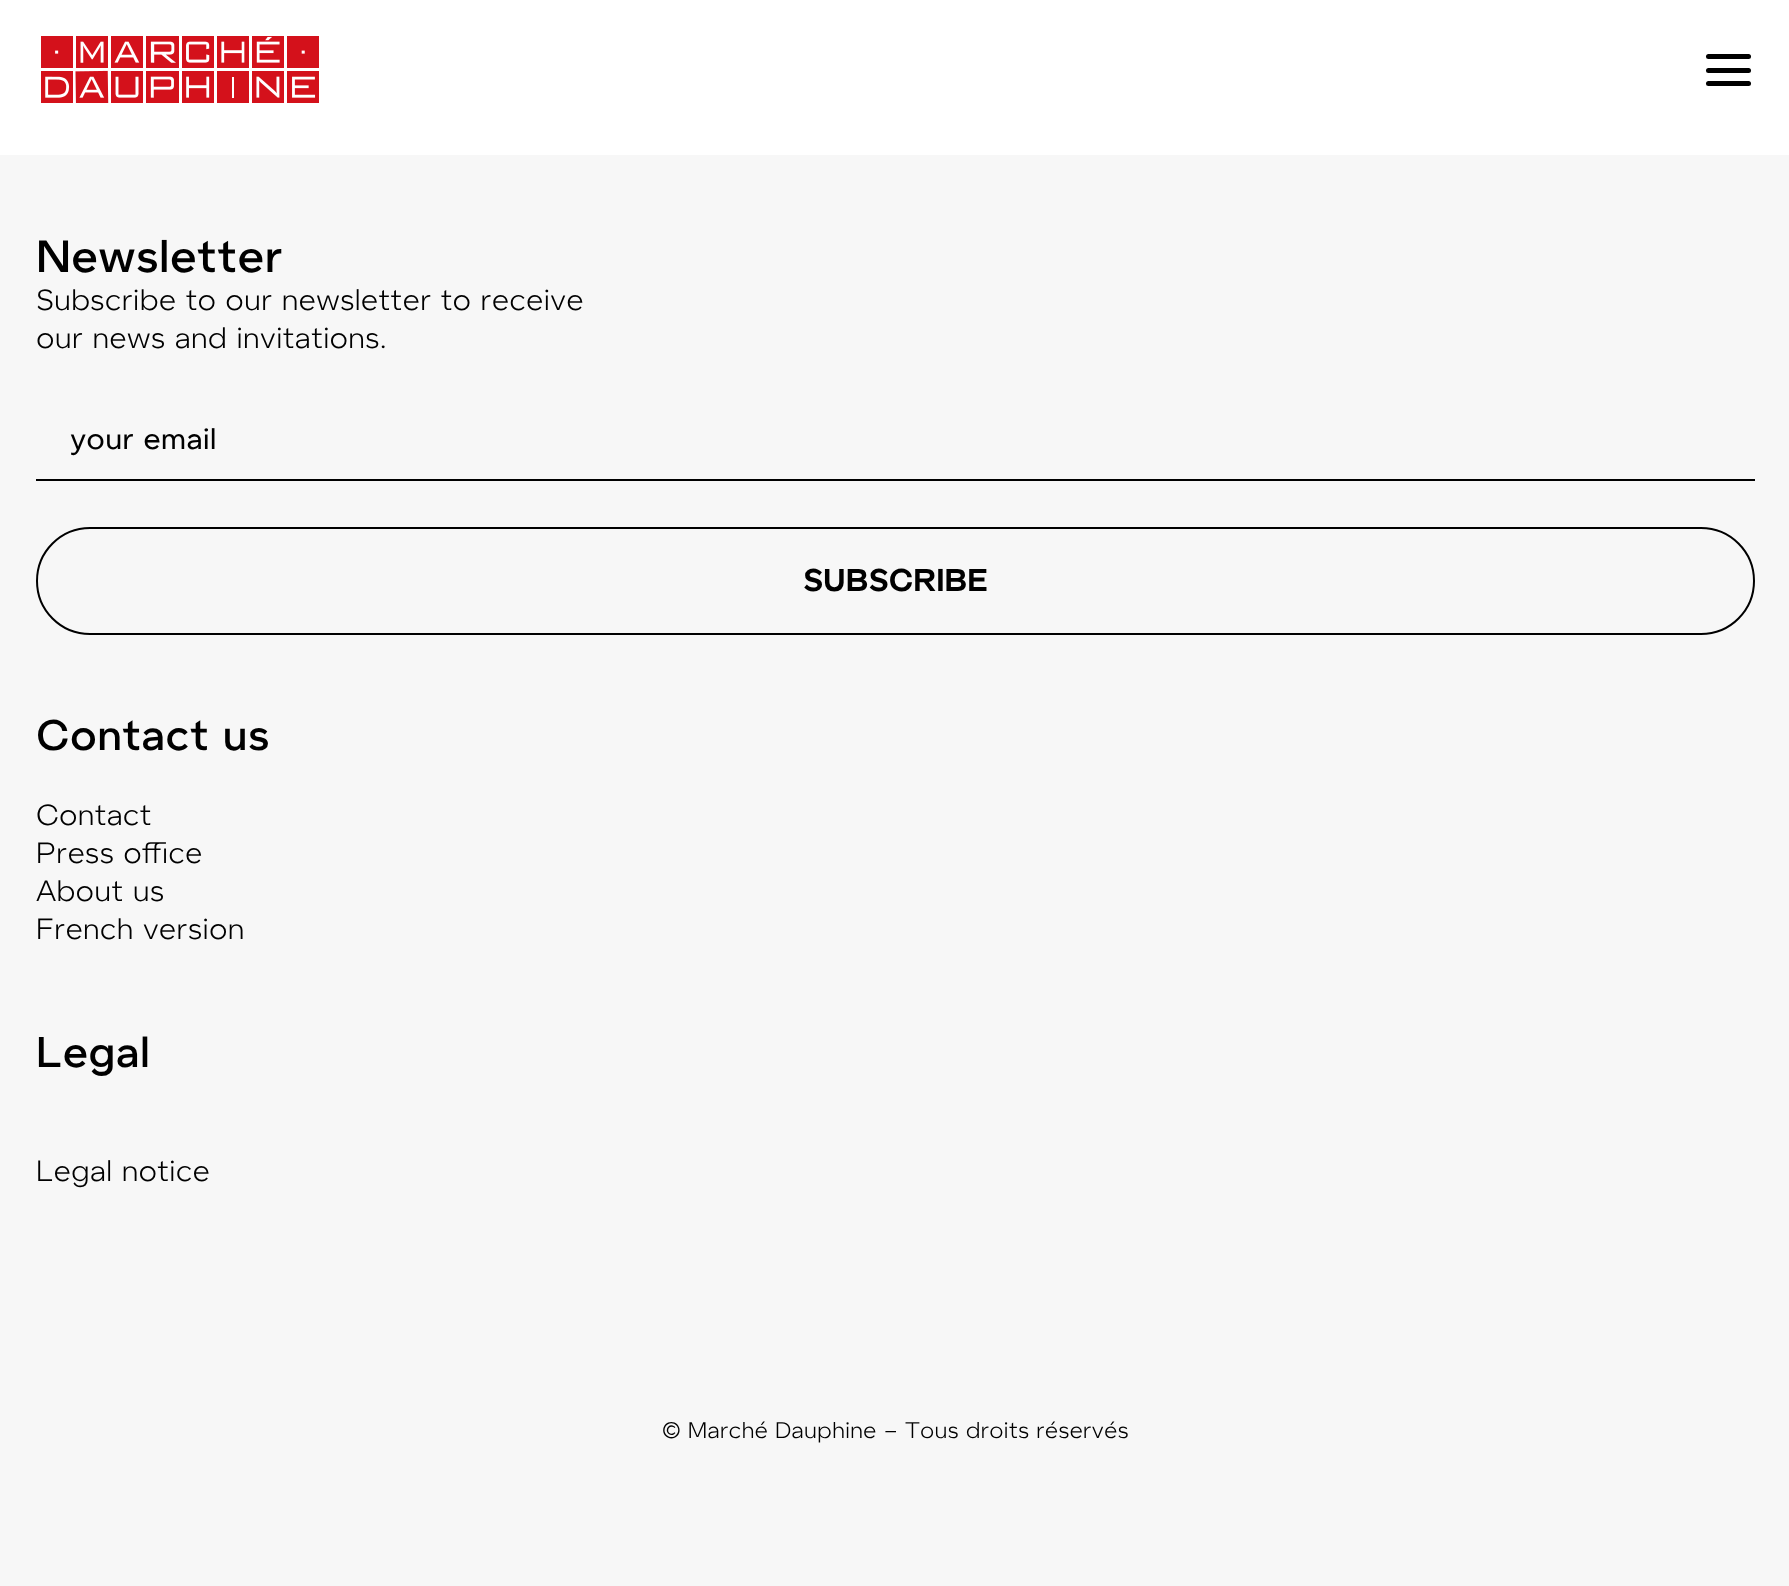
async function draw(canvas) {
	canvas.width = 1789;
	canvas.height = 1586;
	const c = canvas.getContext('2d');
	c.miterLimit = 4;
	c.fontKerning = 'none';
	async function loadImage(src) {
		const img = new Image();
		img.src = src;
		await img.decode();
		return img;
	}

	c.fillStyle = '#fff';
	c.fillRect(0, 0, 1789, 1586);
	c.drawImage(await loadImage('img1.png'), 41, 36, 278, 67);
	c.fillStyle = '#000';
	c.beginPath();
	c.roundRect(1706, 68, 45, 5, 2.5);
	c.fill();
	c.beginPath();
	c.roundRect(1706, 54, 45, 5, 2.5);
	c.fill();
	c.beginPath();
	c.roundRect(1706, 81, 45, 5, 2.5);
	c.fill();
	c.fillStyle = '#f7f7f7';
	c.fillRect(0, 155, 1789, 1431);
	c.font = '500 45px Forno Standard';
	c.fillStyle = '#000';
	c.fillText('Newsletter', 36, 272);
	c.font = '300 29.25px Forno Standard';
	c.fillText('Subscribe to our newsletter to receive', 36, 310);
	c.fillText('our news and invitations.', 36, 348);
	c.fillRect(36, 479, 1719, 2);
	c.font = '29.25px Forno Standard';
	c.fillText('your email', 70, 449);
	c.beginPath();
	c.roundRect(37, 528, 1717, 106, 53);
	c.strokeStyle = '#000';
	c.lineWidth = 2;
	c.stroke();
	c.font = 'bold 31.5px Forno Standard';
	c.fillText('SUBSCRIBE', 803, 591);
	c.font = '500 42.75px Forno Standard';
	c.fillText('Contact us', 36, 750);
	c.font = '300 29.25px Forno Standard';
	for (const [text, x, y] of [
		['Contact', 36, 825],
		['Press office', 36, 863],
		['About us', 36, 901],
		['French version', 36, 939],
	]) {
		c.fillText(text, x, y);
	}
	c.font = '500 42.75px Forno Standard';
	c.fillText('Legal', 36, 1067);
	c.font = '300 29.25px Forno Standard';
	c.fillText('Legal notice', 36, 1181);
	c.font = '300 22.5px Forno Standard';
	c.fillText('© Marché Dauphine – Tous droits', 662, 1438);
	c.fillText('réservés', 1036, 1438);
}

draw(document.querySelector('canvas'));
